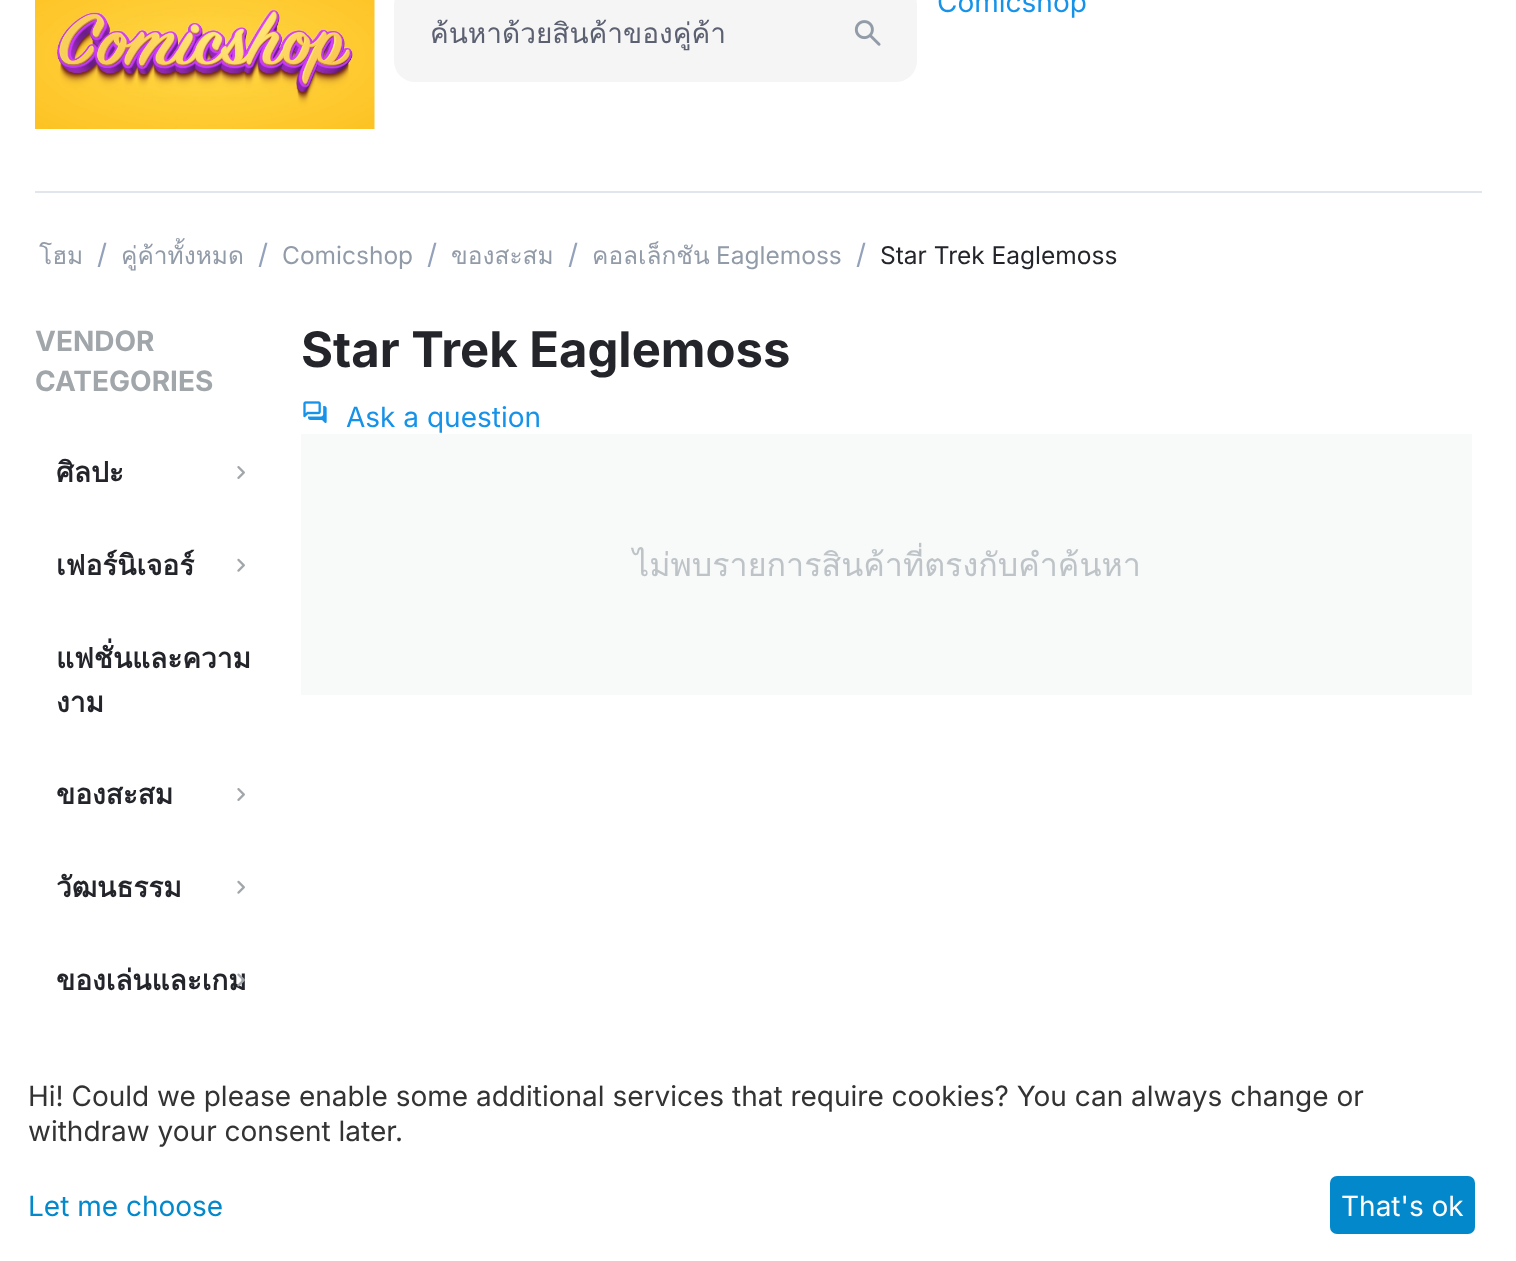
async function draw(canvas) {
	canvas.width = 1516;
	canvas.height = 1261;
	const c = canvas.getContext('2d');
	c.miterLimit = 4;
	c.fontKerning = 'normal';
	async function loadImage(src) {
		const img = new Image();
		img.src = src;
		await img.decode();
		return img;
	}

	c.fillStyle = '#fff';
	c.fillRect(0, 0, 1516, 1261);
	c.fillStyle = '#e1e5ec';
	c.fillRect(35, 191, 1447, 2);
	c.drawImage(await loadImage('img1.png'), 35, 0, 340, 129);
	c.font = '28px Inter';
	c.fillStyle = '#1693e9';
	c.fillText('Comicshop', 937, 12);
	c.fillStyle = '#f5f5f5';
	c.beginPath();
	c.roundRect(394, -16, 523, 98, 21);
	c.fill();
	c.save();
	c.beginPath();
	c.rect(431, 12, 390, 44);
	c.clip();
	c.font = '28px Loma';
	c.fillStyle = '#5c6171';
	c.fillText('ค้นหาด้วยสินค้าของคู่ค้า', 430, 43);
	c.restore();
	c.drawImage(await loadImage('img2.png'), 854, 20, 27, 26);
	c.font = '24.5px Loma';
	c.fillStyle = '#929ba8';
	c.fillText('โฮม', 39, 264);
	c.font = '28px Inter';
	c.fillStyle = '#93a1bb';
	c.fillText('/', 97, 264);
	c.font = '24.5px Loma';
	c.fillStyle = '#929ba8';
	c.fillText('คู่ค้าทั้งหมด', 121, 264);
	c.font = '28px Inter';
	c.fillStyle = '#93a1bb';
	c.fillText('/', 258, 264);
	c.font = '24.5px Inter';
	c.fillStyle = '#929ba8';
	c.fillText('Comicshop', 282, 264);
	c.font = '28px Inter';
	c.fillStyle = '#93a1bb';
	c.fillText('/', 427, 264);
	c.font = '24.5px Loma';
	c.fillStyle = '#929ba8';
	c.fillText('ของสะสม', 451, 264);
	c.font = '28px Inter';
	c.fillStyle = '#93a1bb';
	c.fillText('/', 568, 264);
	c.font = '24.5px Loma';
	c.fillStyle = '#929ba8';
	c.fillText('คอลเล็กชัน', 592, 264);
	c.font = '24.5px Inter';
	c.fillText('Eaglemoss', 716, 264);
	c.font = '28px Inter';
	c.fillStyle = '#93a1bb';
	c.fillText('/', 856, 264);
	c.font = '24.5px Inter';
	c.fillStyle = '#23252b';
	c.fillText('Star Trek Eaglemoss', 880, 264);
	c.font = 'bold 28px Inter';
	c.fillStyle = '#a1a6aa';
	c.fillText('VENDOR', 35, 351);
	c.fillText('CATEGORIES', 35, 391);
	c.font = 'bold 28px Loma';
	c.fillStyle = '#23252b';
	c.fillText('ศิลปะ', 56, 482);
	c.drawImage(await loadImage('img3.png'), 237, 466, 8, 13);
	c.fillText('เฟอร์นิเจอร์', 56, 575);
	c.drawImage(await loadImage('img4.png'), 237, 558, 8, 14);
	for (const [text, x, y] of [
		['แฟชั่นและความ', 56, 668],
		['งาม', 56, 712],
		['ของสะสม', 56, 804],
	]) {
		c.fillText(text, x, y);
	}
	c.drawImage(await loadImage('img3.png'), 237, 788, 8, 13);
	c.fillText('วัฒนธรรม', 56, 897);
	c.drawImage(await loadImage('img4.png'), 237, 880, 8, 14);
	c.fillText('ของเล่นและเกม', 56, 990);
	c.drawImage(await loadImage('img5.png'), 237, 973, 8, 14);
	c.font = 'bold 49px Inter';
	c.fillText('Star Trek Eaglemoss', 301, 367);
	c.drawImage(await loadImage('img6.png'), 303, 401, 24, 22);
	c.font = '28px Inter';
	c.fillStyle = '#1693e9';
	c.fillText('Ask a question', 346, 427);
	c.fillStyle = '#f8f9f9';
	c.fillRect(301, 434, 1171, 261);
	c.font = '32.25px Loma';
	c.fillStyle = '#bdc3c7';
	c.fillText('ไม่พบรายการสินค้าที่ตรงกับคำค้นหา', 633, 576);
	c.font = '28px Inter';
	c.fillStyle = '#333';
	c.fillText('Hi! Could we please enable some additional services that require cookies? You can always change or', 28, 1106);
	c.fillText('withdraw your consent later.', 28, 1141);
	c.fillStyle = '#0388cc';
	c.fillText('Let me choose', 28, 1216);
	c.beginPath();
	c.roundRect(1330, 1176, 145, 58, 7);
	c.fill();
	c.fillStyle = '#fff';
	c.fillText('That\'s ok', 1341, 1216);
}

draw(document.querySelector('canvas'));
